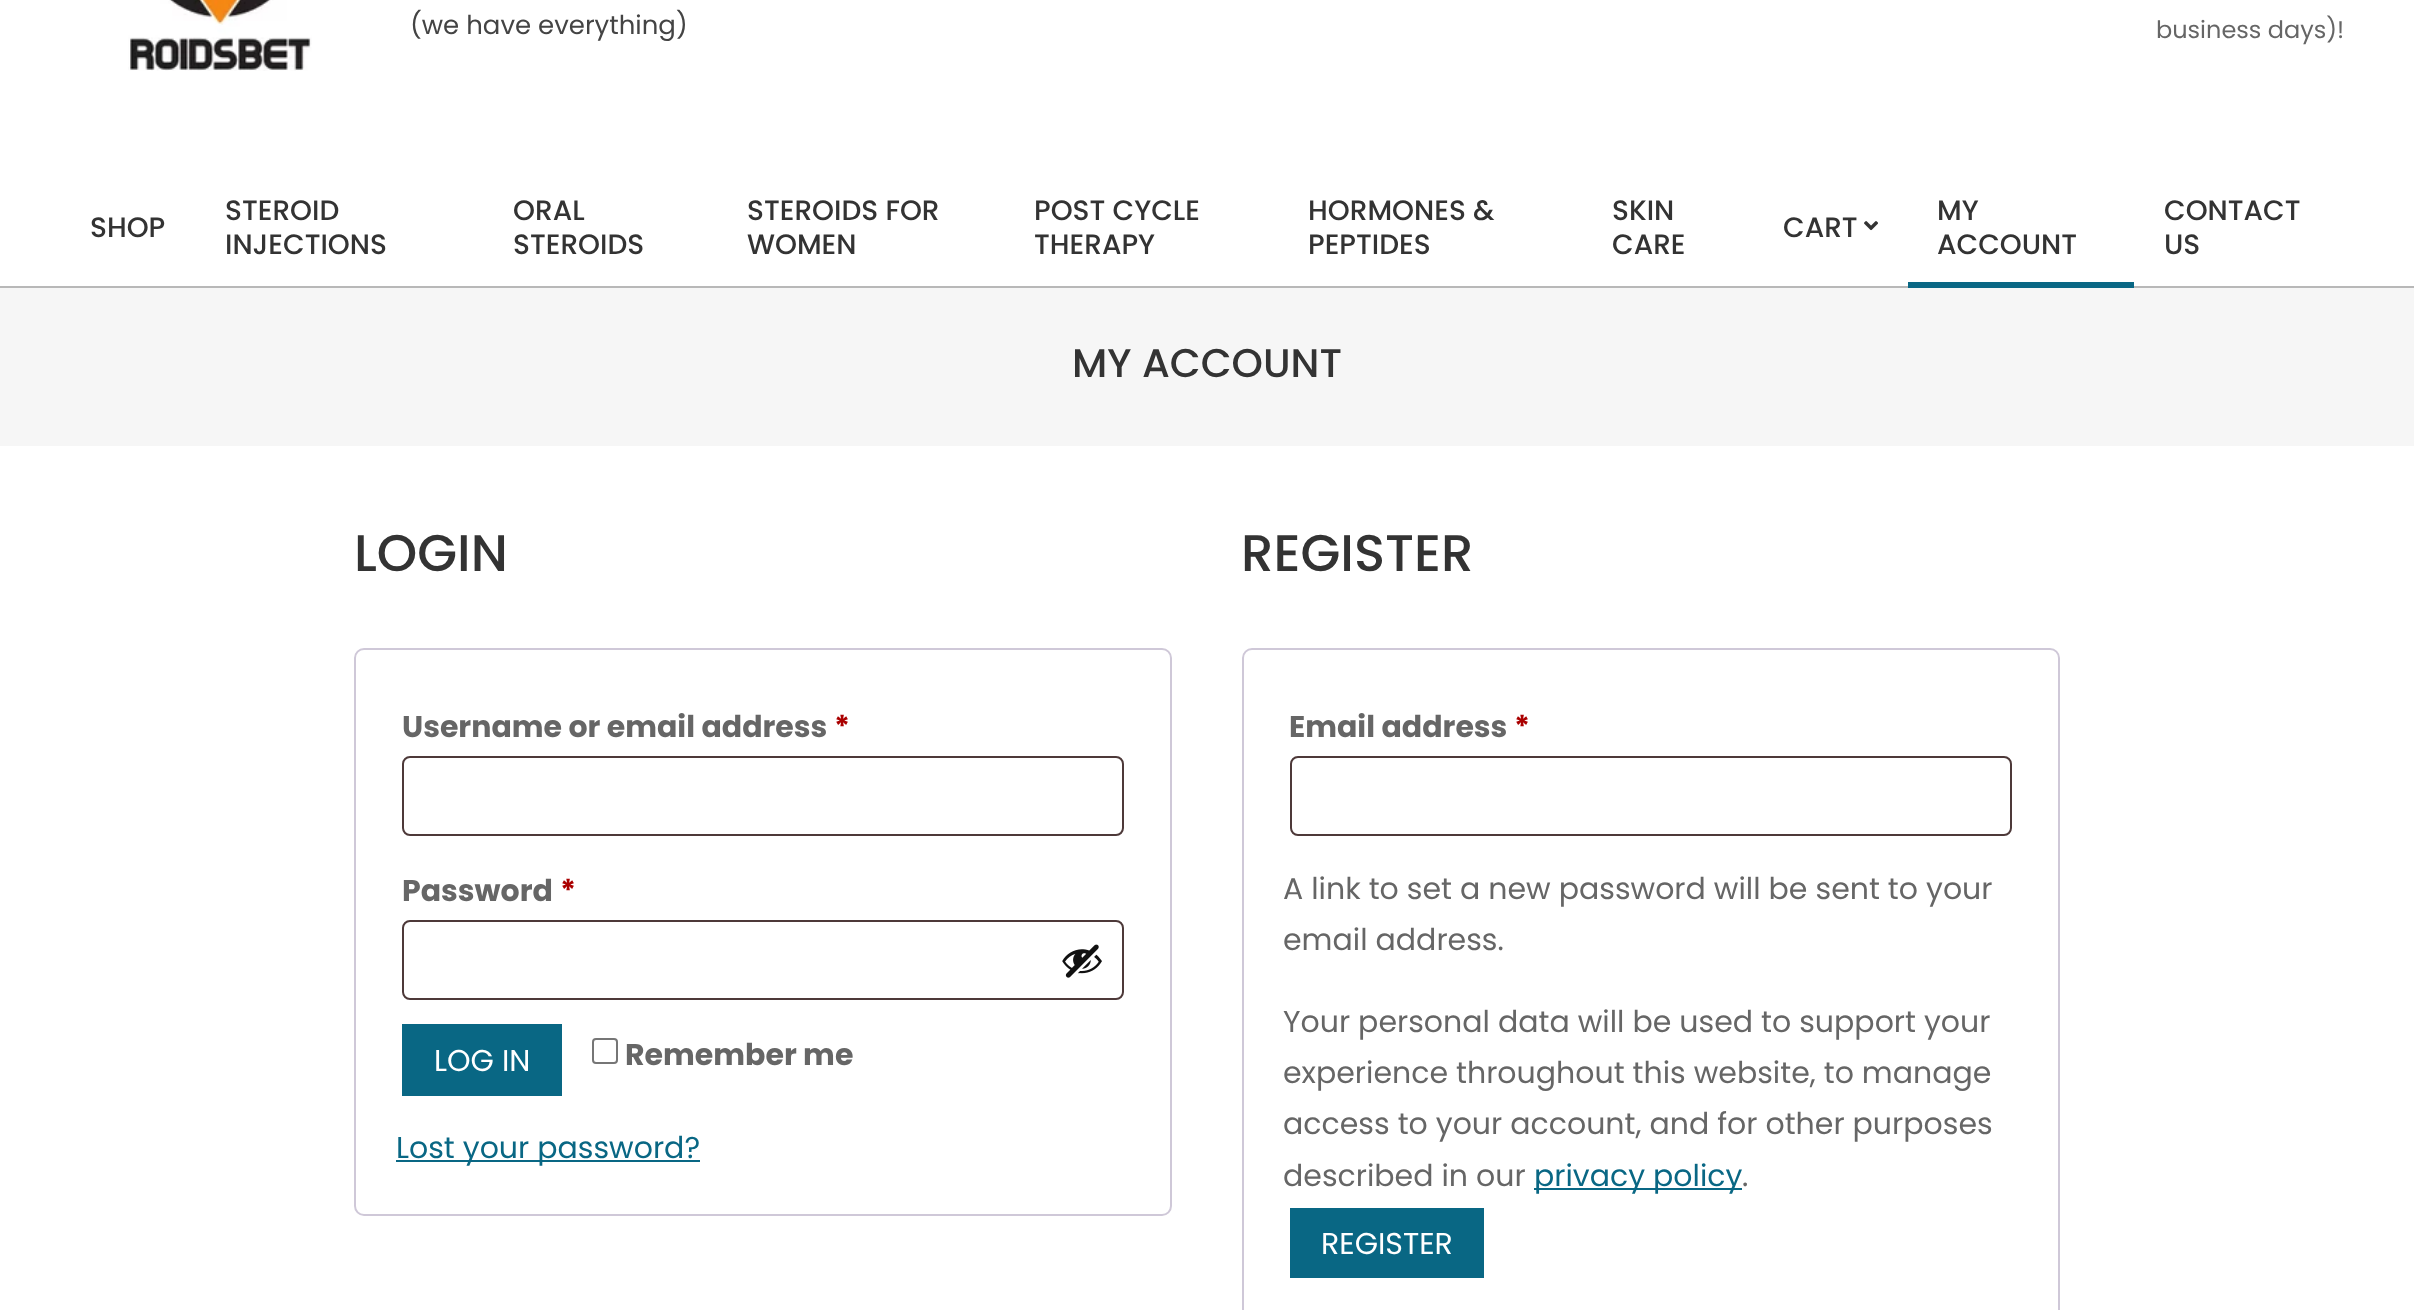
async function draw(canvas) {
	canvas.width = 2414;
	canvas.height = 1310;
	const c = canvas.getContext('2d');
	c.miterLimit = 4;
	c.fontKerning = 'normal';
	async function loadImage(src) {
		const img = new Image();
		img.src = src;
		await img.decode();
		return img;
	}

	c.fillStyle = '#fff';
	c.fillRect(0, 0, 2414, 1310);
	c.fillStyle = '#b8b8b8';
	c.fillRect(0, 286, 2414, 2);
	c.drawImage(await loadImage('img1.png'), 128, 0, 184, 71);
	c.font = '26px Poppins';
	c.fillStyle = '#444';
	c.fillText('(we have everything)', 410, 34);
	c.font = '24px Poppins';
	c.fillStyle = '#666';
	c.fillText('business days)!', 2156, 38);
	c.font = '500 28px Poppins';
	c.fillStyle = '#333';
	for (const [text, x, y] of [
		['SHOP', 90, 237],
		['STEROID', 225, 220],
		['INJECTIONS', 225, 254],
		['ORAL', 513, 220],
		['STEROIDS', 513, 254],
		['STEROIDS FOR', 747, 220],
		['WOMEN', 747, 254],
		['POST CYCLE', 1034, 220],
		['THERAPY', 1034, 254],
		['HORMONES &', 1308, 220],
		['PEPTIDES', 1308, 254],
		['SKIN', 1612, 220],
		['CARE', 1612, 254],
		['CART', 1783, 237],
	]) {
		c.fillText(text, x, y);
	}
	c.drawImage(await loadImage('img2.png'), 1864, 221, 14, 10);
	c.fillText('MY', 1937, 220);
	c.fillText('ACCOUNT', 1937, 254);
	c.fillStyle = '#096784';
	c.fillRect(1908, 282, 226, 6);
	c.fillStyle = '#333';
	c.fillText('CONTACT', 2164, 220);
	c.fillText('US', 2164, 254);
	c.fillStyle = '#f6f6f6';
	c.fillRect(0, 288, 2414, 158);
	c.font = '500 40px Poppins';
	c.fillStyle = '#333';
	c.fillText('MY ACCOUNT', 1072, 377);
	c.font = '500 51.5px Poppins';
	c.fillText('LOGIN', 354, 571);
	c.beginPath();
	c.roundRect(355, 649, 816, 566, 9);
	c.strokeStyle = '#cfc8d8';
	c.lineWidth = 2;
	c.stroke();
	c.font = 'bold 30px Poppins';
	c.fillStyle = '#666';
	c.fillText('Username or email address', 402, 737);
	c.fillStyle = '#a00';
	c.fillText('*', 834, 737);
	c.beginPath();
	c.roundRect(403, 757, 720, 78, 7);
	c.strokeStyle = '#4d3939';
	c.stroke();
	c.fillStyle = '#666';
	c.fillText('Password', 402, 901);
	c.fillStyle = '#a00';
	c.fillText('*', 560, 901);
	c.beginPath();
	c.roundRect(403, 921, 720, 78, 7);
	c.stroke();
	c.drawImage(await loadImage('img3.png'), 1062, 944, 40, 34);
	c.fillStyle = '#096784';
	c.fillRect(402, 1024, 160, 72);
	c.font = '30px Poppins';
	c.fillStyle = '#fff';
	c.fillText('LOG IN', 434, 1071);
	c.beginPath();
	c.roundRect(593, 1039, 24, 24, 3);
	c.strokeStyle = '#767676';
	c.stroke();
	c.font = 'bold 30px Poppins';
	c.fillStyle = '#666';
	c.fillText('Remember me', 625, 1065);
	c.fillStyle = '#096784';
	c.fillRect(396, 1160, 304, 2);
	c.font = '30px Poppins';
	c.fillText('Lost your password?', 396, 1158);
	c.font = '500 51.5px Poppins';
	c.fillStyle = '#333';
	c.fillText('REGISTER', 1241, 571);
	c.beginPath();
	c.roundRect(1243, 649, 816, 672, 9);
	c.strokeStyle = '#cfc8d8';
	c.stroke();
	c.font = 'bold 30px Poppins';
	c.fillStyle = '#666';
	c.fillText('Email address', 1289, 737);
	c.fillStyle = '#a00';
	c.fillText('*', 1514, 737);
	c.beginPath();
	c.roundRect(1291, 757, 720, 78, 7);
	c.strokeStyle = '#4d3939';
	c.stroke();
	c.font = '30px Poppins';
	c.fillStyle = '#666';
	for (const [text, x, y] of [
		['A link to set a new password will be sent to your', 1283, 899],
		['email address.', 1283, 950],
		['Your personal data will be used to support your', 1283, 1032],
		['experience throughout this website, to manage', 1283, 1083],
		['access to your account, and for other purposes', 1283, 1134],
		['described in our', 1283, 1186],
	]) {
		c.fillText(text, x, y);
	}
	c.fillStyle = '#096784';
	c.fillRect(1534, 1188, 208, 2);
	c.fillText('privacy policy', 1534, 1186);
	c.fillStyle = '#666';
	c.fillText('.', 1742, 1186);
	c.fillStyle = '#096784';
	c.fillRect(1290, 1208, 194, 70);
	c.fillStyle = '#fff';
	c.fillText('REGISTER', 1321, 1254);
}

draw(document.querySelector('canvas'));
